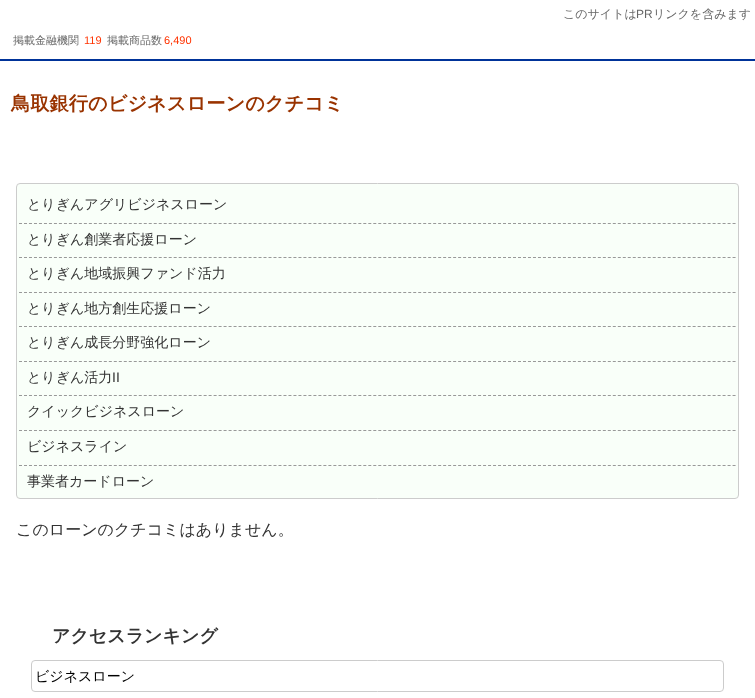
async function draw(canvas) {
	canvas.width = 755;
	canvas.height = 698;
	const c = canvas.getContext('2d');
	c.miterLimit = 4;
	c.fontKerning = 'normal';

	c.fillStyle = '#fff';
	c.fillRect(0, 0, 755, 698);
	c.font = '500 12px WenQuanYi Zen Hei';
	c.fillStyle = '#666';
	c.fillText('このサイトは', 563, 18);
	c.font = '12px Liberation Sans';
	c.fillText('PR', 636, 18);
	c.font = '500 12px WenQuanYi Zen Hei';
	c.fillText('リンクを含みます', 653, 18);
	c.fillStyle = '#039';
	c.fillRect(0, 59, 755, 2);
	c.font = '500 11px WenQuanYi Zen Hei';
	c.fillStyle = '#666';
	c.fillText('掲載金融機関', 13, 44);
	c.font = '11px Liberation Sans';
	c.fillStyle = '#f30';
	c.fillText('119', 84, 44);
	c.font = '500 11px WenQuanYi Zen Hei';
	c.fillStyle = '#666';
	c.fillText('掲載商品数', 107, 44);
	c.font = '11px Liberation Sans';
	c.fillStyle = '#f30';
	c.fillText('6,490', 164, 44);
	c.font = 'bold 19.25px WenQuanYi Zen Hei';
	c.fillStyle = '#930';
	c.fillText('鳥取銀行のビジネスローンのクチコミ', 11, 110);
	c.fillStyle = '#f9fff9';
	c.beginPath();
	c.roundRect(16.5, 183.5, 722, 315, 3.5);
	c.fill();
	c.strokeStyle = '#ccc';
	c.stroke();
	c.font = '500 14px WenQuanYi Zen Hei';
	c.fillStyle = '#333';
	c.fillText('とりぎんアグリビジネスローン', 27, 209);
	c.beginPath();
	c.moveTo(19, 223.5);
	c.lineTo(736, 223.5);
	c.strokeStyle = '#999';
	c.setLineDash([3, 1.99]);
	c.stroke();
	c.fillText('とりぎん創業者応援ローン', 27, 244);
	c.beginPath();
	c.moveTo(19, 257.5);
	c.lineTo(736, 257.5);
	c.stroke();
	c.fillText('とりぎん地域振興ファンド活力', 27, 278);
	c.beginPath();
	c.moveTo(19, 292.5);
	c.lineTo(736, 292.5);
	c.stroke();
	c.fillText('とりぎん地方創生応援ローン', 27, 313);
	c.beginPath();
	c.moveTo(19, 326.5);
	c.lineTo(736, 326.5);
	c.stroke();
	c.fillText('とりぎん成長分野強化ローン', 27, 347);
	c.beginPath();
	c.moveTo(19, 361.5);
	c.lineTo(736, 361.5);
	c.stroke();
	c.fillText('とりぎん活力', 27, 382);
	c.font = '14px Liberation Sans';
	c.fillText('II', 112, 382);
	c.beginPath();
	c.moveTo(19, 395.5);
	c.lineTo(736, 395.5);
	c.stroke();
	c.font = '500 14px WenQuanYi Zen Hei';
	c.fillText('クイックビジネスローン', 27, 416);
	c.beginPath();
	c.moveTo(19, 430.5);
	c.lineTo(736, 430.5);
	c.stroke();
	c.fillText('ビジネスライン', 27, 451);
	c.beginPath();
	c.moveTo(19, 465.5);
	c.lineTo(736, 465.5);
	c.stroke();
	c.fillText('事業者カードローン', 27, 486);
	c.font = '500 16px WenQuanYi Zen Hei';
	c.fillText('このローンのクチコミはありません。', 16, 535);
	c.font = 'bold 18px WenQuanYi Zen Hei';
	c.fillText('アクセスランキング', 52, 642);
	c.beginPath();
	c.roundRect(31.5, 660.5, 692, 31, 3.5);
	c.strokeStyle = '#ccc';
	c.setLineDash([]);
	c.stroke();
	c.font = '500 14px WenQuanYi Zen Hei';
	c.fillStyle = '#000';
	c.fillText('ビジネスローン', 35, 681);
}

draw(document.querySelector('canvas'));
